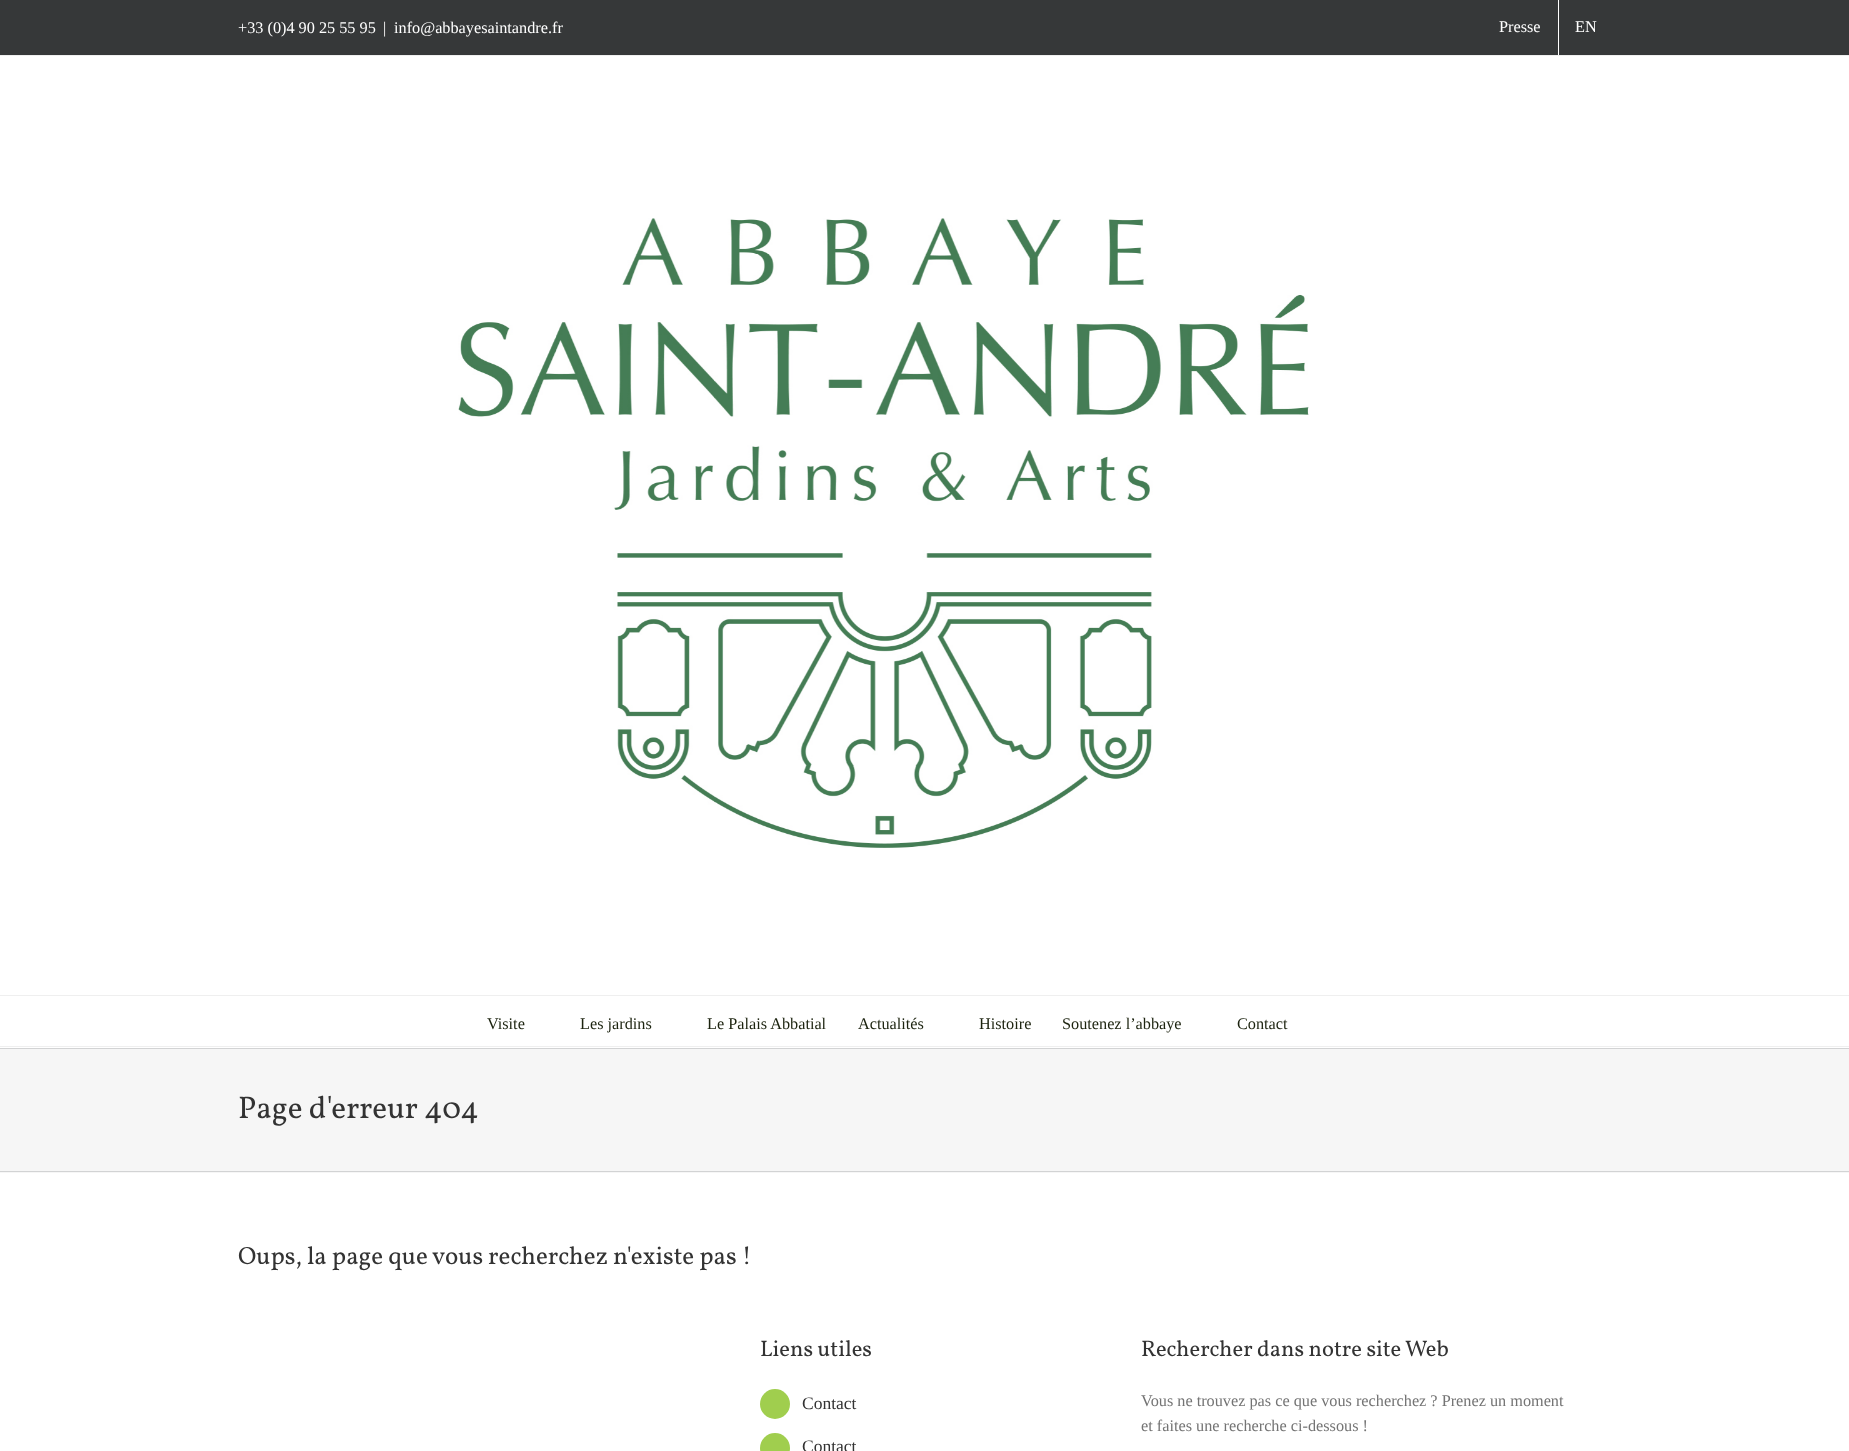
async function draw(canvas) {
	canvas.width = 1849;
	canvas.height = 1451;
	const c = canvas.getContext('2d');
	c.miterLimit = 4;
	c.fontKerning = 'normal';
	async function loadImage(src) {
		const img = new Image();
		img.src = src;
		await img.decode();
		return img;
	}

	c.fillStyle = '#fff';
	c.fillRect(0, 0, 1849, 1451);
	c.fillStyle = '#363839';
	c.fillRect(0, 0, 1849, 55);
	c.fillStyle = '#efefef';
	c.fillRect(0, 55, 1849, 1);
	c.font = '16.25px Liberation Serif';
	c.fillStyle = '#fff';
	for (const [text, x, y] of [
		['+33 (0)4 90 25 55 95', 238, 33],
		['|', 383, 33],
		['info@abbayesaintandre.fr', 394, 33],
		['Presse', 1499, 32],
	]) {
		c.fillText(text, x, y);
	}
	c.fillRect(1558, 0, 1, 55);
	c.fillText('EN', 1575, 32);
	c.fillStyle = '#efefef';
	c.fillRect(0, 995, 1849, 1);
	c.drawImage(await loadImage('img1.png'), 458, 218, 851, 630);
	c.fillRect(0, 1046, 1849, 1);
	c.fillStyle = '#1c230f';
	for (const [text, x, y] of [
		['Visite', 487, 1029],
		['Les jardins', 580, 1029],
		['Le Palais Abbatial', 707, 1029],
		['Actualités', 858, 1029],
		['Histoire', 979, 1029],
		['Soutenez l’abbaye', 1062, 1029],
		['Contact', 1237, 1029],
	]) {
		c.fillText(text, x, y);
	}
	for (const [x, y, w, h, color] of [
		[0, 1049, 1849, 124, '#f6f6f6'],
		[0, 1048, 1849, 1, '#d2d3d4'],
		[0, 1171, 1849, 1, '#d2d3d4'],
	]) {
		c.fillStyle = color;
		c.fillRect(x, y, w, h);
	}
	c.font = '31.25px Vollkorn';
	c.fillStyle = '#333';
	c.fillText('Page d\'erreur 404', 238, 1118);
	c.font = '25px Vollkorn';
	c.fillText('Oups, la page que vous recherchez n\'existe pas !', 238, 1264);
	c.font = '22.5px Vollkorn';
	c.fillText('Liens utiles', 760, 1356);
	c.fillStyle = '#a0ce4e';
	c.beginPath();
	c.arc(775, 1404, 15, 0, 2 * Math.PI);
	c.fill();
	c.font = '17.5px Liberation Serif';
	c.fillStyle = '#333';
	c.fillText('Contact', 802, 1409);
	c.fillStyle = '#a0ce4e';
	c.beginPath();
	c.arc(775, 1448, 15, 0, 2 * Math.PI);
	c.fill();
	c.fillStyle = '#333';
	c.fillText('Contact', 802, 1452);
	c.font = '22.5px Vollkorn';
	c.fillText('Rechercher dans notre site Web', 1141, 1356);
	c.font = '16.25px Liberation Serif';
	c.fillStyle = '#747474';
	c.fillText('Vous ne trouvez pas ce que vous recherchez ? Prenez un moment', 1141, 1406);
	c.fillText('et faites une recherche ci-dessous !', 1141, 1431);
}

draw(document.querySelector('canvas'));
